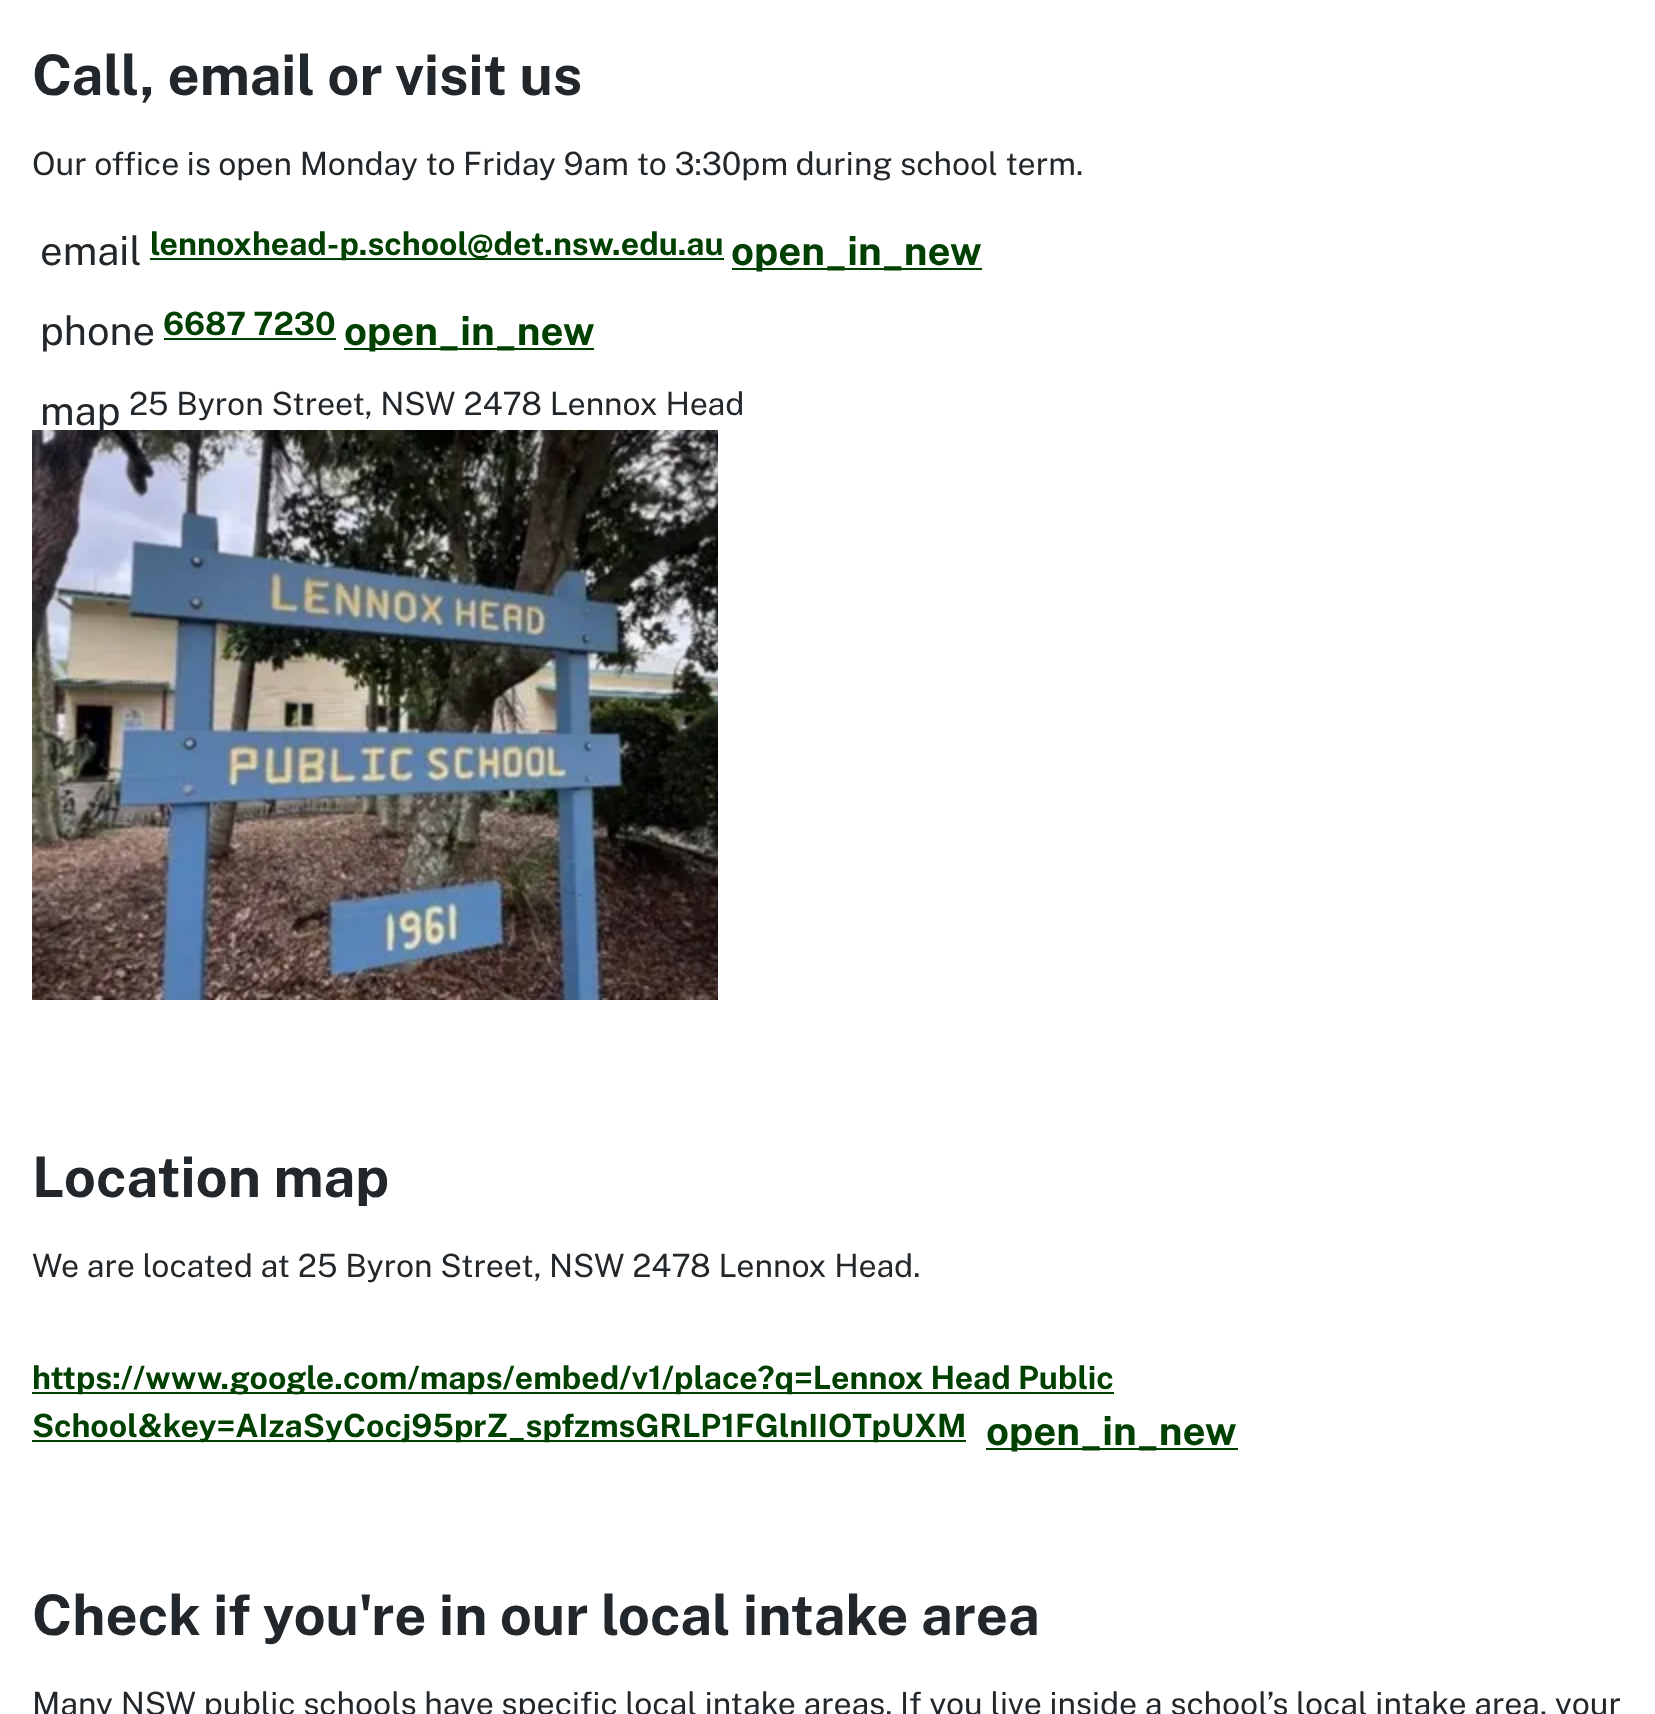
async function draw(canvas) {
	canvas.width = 1655;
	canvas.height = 1714;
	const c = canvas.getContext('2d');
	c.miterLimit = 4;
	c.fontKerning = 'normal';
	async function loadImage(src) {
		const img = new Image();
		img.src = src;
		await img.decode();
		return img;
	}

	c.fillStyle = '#fff';
	c.fillRect(0, 0, 1655, 1714);
	c.font = 'bold 56px Public Sans';
	c.fillStyle = '#22272b';
	c.fillText('Call, email or visit us', 32, 95);
	c.font = '32px Public Sans';
	c.fillText('Our office is open Monday to Friday 9am to 3:30pm during school term.', 32, 175);
	c.font = '40px Public Sans';
	c.fillText('email', 40, 265);
	c.fillStyle = '#004000';
	c.fillRect(150, 258, 574, 2);
	c.font = 'bold 32px Public Sans';
	c.fillText('lennoxhead-p.school@det.nsw.edu.au', 150, 255);
	c.fillRect(732, 268, 250, 2);
	c.font = 'bold 40px Public Sans';
	c.fillText('open_in_new', 731, 265);
	c.font = '40px Public Sans';
	c.fillStyle = '#22272b';
	c.fillText('phone', 40, 345);
	c.font = 'bold 32px Public Sans';
	c.fillStyle = '#004000';
	c.fillText('6687 7230', 163, 335);
	c.fillRect(344, 348, 250, 2);
	c.font = 'bold 40px Public Sans';
	c.fillText('open_in_new', 344, 345);
	c.fillRect(164, 338, 172, 2);
	c.drawImage(await loadImage('img1.png'), 32, 430, 686, 570);
	c.font = '40px Public Sans';
	c.fillStyle = '#22272b';
	c.fillText('map', 40, 425);
	c.font = '32px Public Sans';
	c.fillText('25 Byron Street, NSW 2478 Lennox Head', 129, 415);
	c.font = 'bold 56px Public Sans';
	c.fillText('Location map', 32, 1197);
	c.font = '32px Public Sans';
	c.fillText('We are located at 25 Byron Street, NSW 2478 Lennox Head.', 32, 1277);
	c.fillStyle = '#004000';
	c.fillRect(32, 1392, 1082, 2);
	c.font = 'bold 32px Public Sans';
	c.fillText('https://www.google.com/maps/embed/v1/place?q=Lennox Head Public', 32, 1389);
	c.fillRect(32, 1440, 934, 2);
	c.fillText('School&key=AIzaSyCocj95prZ_spfzmsGRLP1FGlnIIOTpUXM', 32, 1437);
	c.fillRect(986, 1448, 252, 2);
	c.font = 'bold 40px Public Sans';
	c.fillText('open_in_new', 986, 1445);
	c.font = 'bold 56px Public Sans';
	c.fillStyle = '#22272b';
	c.fillText('Check if you\'re in our local intake area', 32, 1635);
	c.font = '32px Public Sans';
	c.fillText('Many NSW public schools have specific local intake areas. If you live inside a school’s local intake area, your', 32, 1715);
}

draw(document.querySelector('canvas'));
